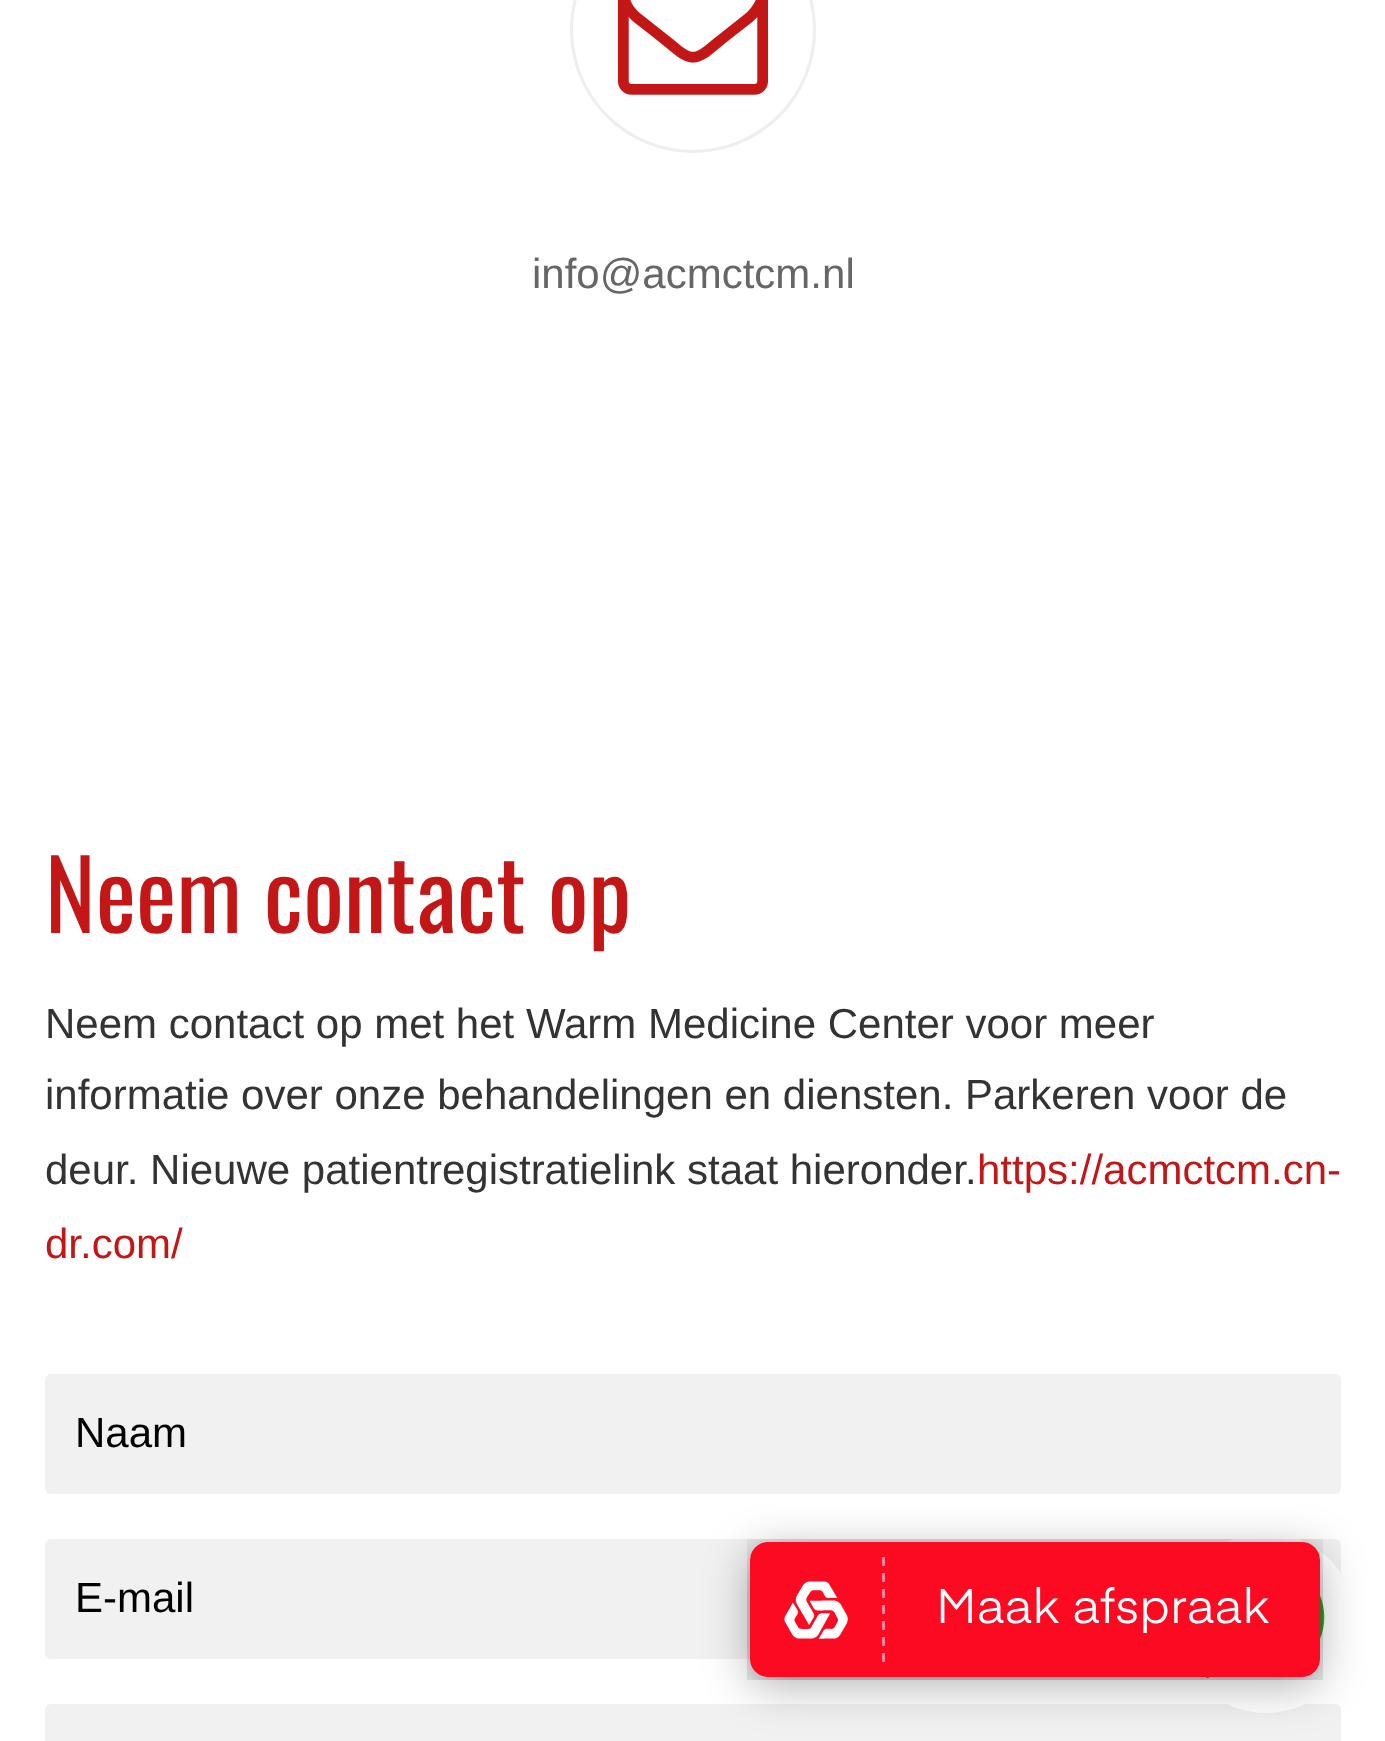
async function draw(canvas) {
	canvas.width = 1385;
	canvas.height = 1741;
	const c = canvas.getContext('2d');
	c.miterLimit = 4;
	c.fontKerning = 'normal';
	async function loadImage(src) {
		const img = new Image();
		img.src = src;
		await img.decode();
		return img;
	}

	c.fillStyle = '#fff';
	c.fillRect(0, 0, 1385, 1741);
	c.beginPath();
	c.arc(693, 30, 121.5, 0, 2 * Math.PI);
	c.strokeStyle = '#eee';
	c.lineWidth = 3;
	c.stroke();
	c.drawImage(await loadImage('img1.png'), 618, 0, 150, 95);
	c.font = '42px Liberation Sans';
	c.fillStyle = '#666';
	c.fillText('info@acmctcm.nl', 532, 288);
	c.font = '96px Oswald';
	c.fillStyle = '#c31717';
	c.fillText('Neem contact op', 45, 933);
	c.font = '42px Liberation Sans';
	c.fillStyle = '#333';
	for (const [text, x, y] of [
		['Neem contact op met het Warm Medicine Center voor meer', 45, 1038],
		['informatie over onze behandelingen en diensten. Parkeren voor de', 45, 1109],
		['deur. Nieuwe patientregistratielink staat hieronder.', 45, 1184],
	]) {
		c.fillText(text, x, y);
	}
	c.fillStyle = '#c31717';
	c.fillText('https://acmctcm.cn-', 977, 1184);
	c.fillText('dr.com/', 45, 1258);
	c.fillStyle = '#f1f1f1';
	c.beginPath();
	c.roundRect(45, 1374, 1296, 120, 6);
	c.fill();
	c.fillStyle = '#000';
	c.fillText('Naam', 75, 1447);
	c.fillStyle = '#f1f1f1';
	c.beginPath();
	c.roundRect(45, 1539, 1296, 120, 6);
	c.fill();
	c.fillStyle = '#000';
	c.fillText('E-mail', 75, 1612);
	c.fillStyle = '#f1f1f1';
	c.beginPath();
	c.roundRect(45, 1704, 1296, 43, 6);
	c.fill();
	c.fillStyle = '#fff';
	c.beginPath();
	c.arc(1266, 1623, 90, 0, 2 * Math.PI);
	c.fill();
	c.drawImage(await loadImage('img3.png'), 1206, 1595, 119, 84);
	c.fillStyle = '#0000004d';
	c.filter = 'blur(22.5px)';
	c.beginPath();
	c.roundRect(750, 1551, 570, 135, 18);
	c.fill();
	c.filter = 'none';
	c.drawImage(await loadImage('img2.png'), 747, 1539, 576, 141);
}

draw(document.querySelector('canvas'));
